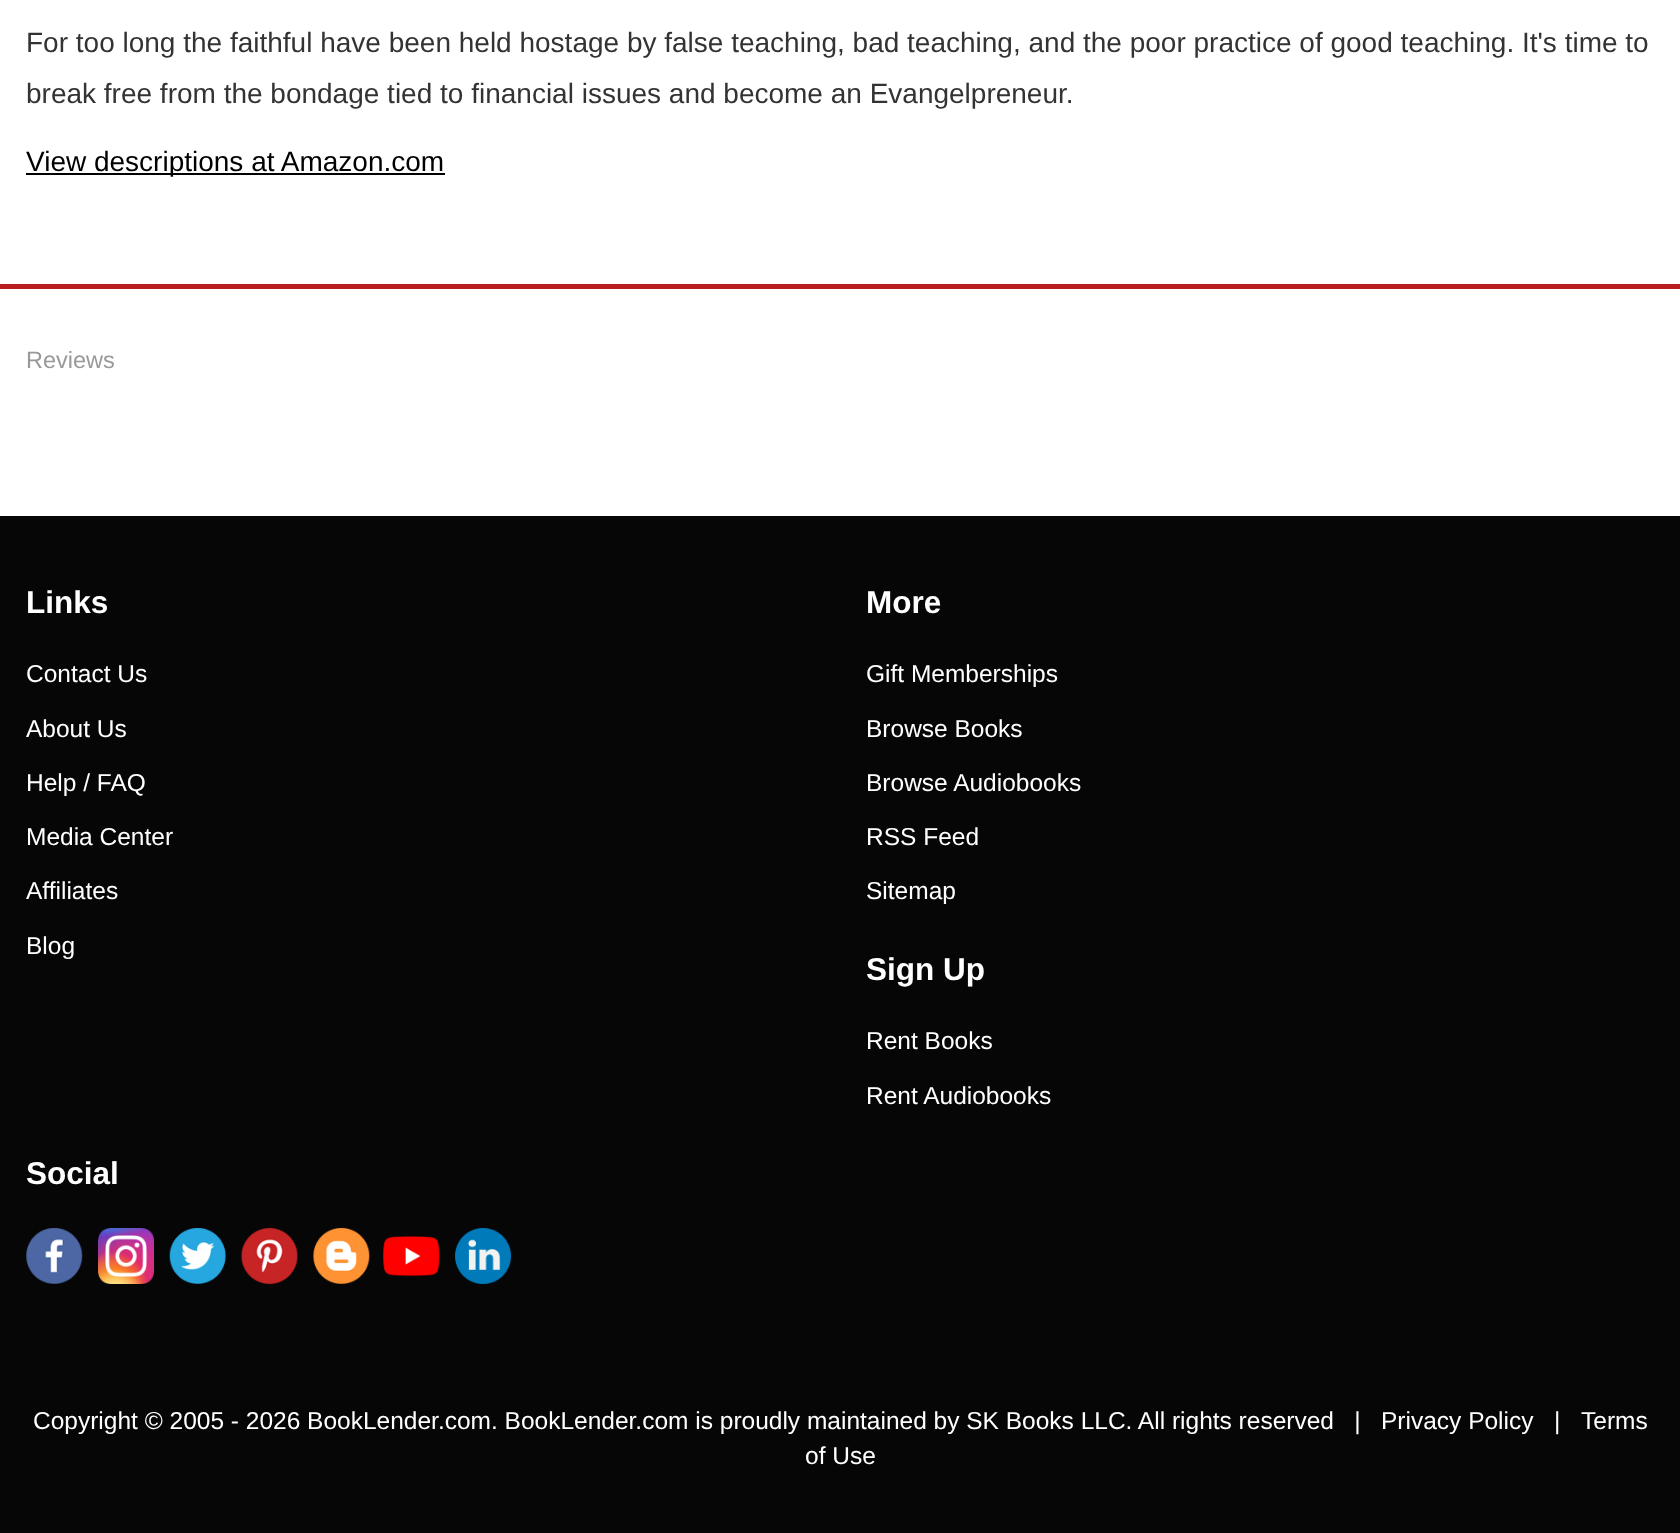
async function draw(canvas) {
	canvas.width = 1680;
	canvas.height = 1533;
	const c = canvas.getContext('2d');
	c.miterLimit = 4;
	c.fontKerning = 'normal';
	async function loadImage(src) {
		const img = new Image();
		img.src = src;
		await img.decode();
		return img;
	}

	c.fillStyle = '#fff';
	c.fillRect(0, 0, 1680, 1533);
	c.font = '28px Liberation Sans';
	c.fillStyle = '#333';
	c.fillText('For too long the faithful have been held hostage by false teaching, bad teaching, and the poor practice of good teaching. It\'s time to', 26, 52);
	c.fillText('break free from the bondage tied to financial issues and become an Evangelpreneur.', 26, 103);
	c.fillStyle = '#000';
	c.fillRect(26, 173, 419, 2);
	c.fillText('View descriptions at Amazon.com', 26, 171);
	c.fillStyle = '#b81f1f';
	c.fillRect(0, 284, 1680, 5);
	c.font = '23.5px Liberation Sans';
	c.fillStyle = '#999';
	c.fillText('Reviews', 26, 368);
	c.fillStyle = '#060606';
	c.fillRect(0, 516, 1680, 1017);
	c.font = 'bold 31.5px Liberation Sans';
	c.fillStyle = '#fff';
	c.fillText('Links', 26, 613);
	c.font = '24.5px Liberation Sans';
	for (const [text, x, y] of [
		['Contact Us', 26, 682],
		['About Us', 26, 737],
		['Help / FAQ', 26, 791],
		['Media Center', 26, 845],
		['Affiliates', 26, 899],
		['Blog', 26, 954],
	]) {
		c.fillText(text, x, y);
	}
	c.font = 'bold 31.5px Liberation Sans';
	c.fillText('More', 866, 613);
	c.font = '24.5px Liberation Sans';
	for (const [text, x, y] of [
		['Gift Memberships', 866, 682],
		['Browse Books', 866, 737],
		['Browse Audiobooks', 866, 791],
		['RSS Feed', 866, 845],
		['Sitemap', 866, 899],
	]) {
		c.fillText(text, x, y);
	}
	c.font = 'bold 31.5px Liberation Sans';
	c.fillText('Sign Up', 866, 980);
	c.font = '24.5px Liberation Sans';
	c.fillText('Rent Books', 866, 1049);
	c.fillText('Rent Audiobooks', 866, 1104);
	c.font = 'bold 31.5px Liberation Sans';
	c.fillText('Social', 26, 1184);
	c.drawImage(await loadImage('img1.png'), 26, 1228, 57, 56);
	c.drawImage(await loadImage('img2.png'), 98, 1228, 56, 56);
	c.drawImage(await loadImage('img3.png'), 169, 1228, 57, 56);
	c.drawImage(await loadImage('img4.png'), 241, 1228, 57, 56);
	c.drawImage(await loadImage('img5.png'), 313, 1228, 57, 56);
	c.drawImage(await loadImage('img6.png'), 383, 1236, 57, 41);
	c.drawImage(await loadImage('img7.png'), 455, 1228, 56, 56);
	c.font = '24.5px Liberation Sans';
	for (const [text, x, y] of [
		['Copyright © 2005 - 2026 BookLender.com. BookLender.com is proudly maintained by SK Books LLC. All rights reserved   |', 33, 1429],
		['Privacy Policy', 1381, 1429],
		['|', 1554, 1429],
		['Terms', 1581, 1429],
		['of Use', 805, 1464],
	]) {
		c.fillText(text, x, y);
	}
}

draw(document.querySelector('canvas'));
